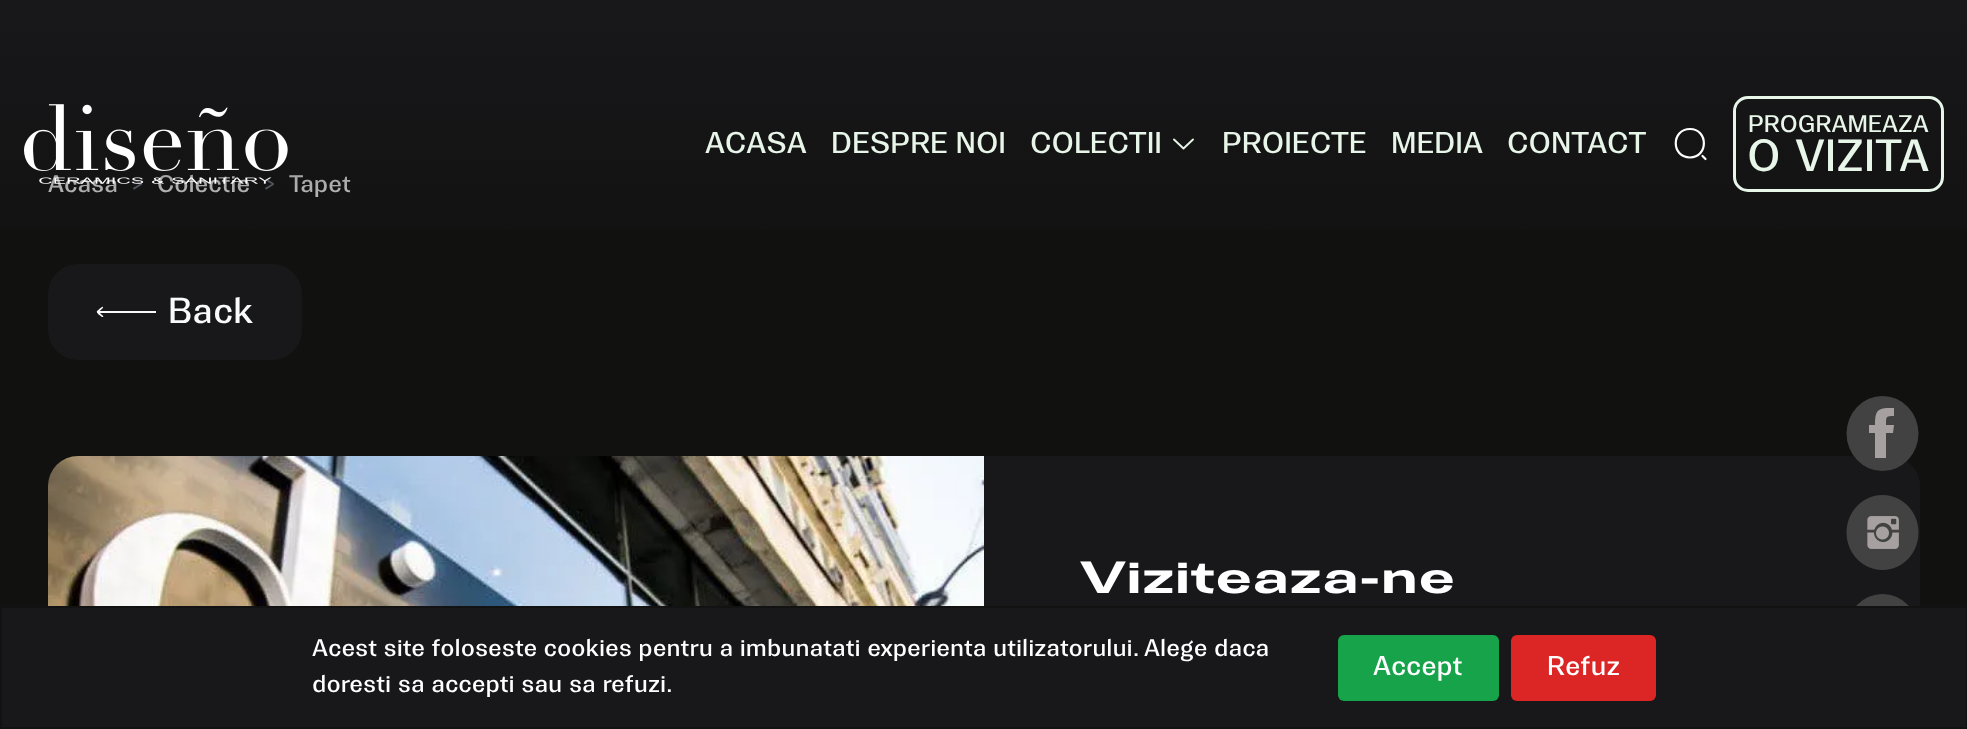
<svg xmlns="http://www.w3.org/2000/svg" width="1967" height="729" viewBox="0 0 1967 729">
  <defs>
    <linearGradient id="g1" gradientUnits="userSpaceOnUse" x1="984" y1="0" x2="984" y2="288"><stop offset="0" stop-color="#18181b"/><stop offset="1" stop-color="#18181b" stop-opacity="0"/></linearGradient>
  </defs>
  <rect width="100%" height="100%" fill="#111110"/>
  <text x="48" y="192" font-family="'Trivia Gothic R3'" font-size="24" fill="#ffffff">Acasa</text>
  <text x="130" y="192" font-family="'Trivia Gothic R3'" font-size="24" fill="#6b7280">&gt;</text>
  <text x="157" y="192" font-family="'Trivia Gothic R3'" font-size="24" fill="#ffffff">Colectie</text>
  <text x="262" y="192" font-family="'Trivia Gothic R3'" font-size="24" fill="#6b7280">&gt;</text>
  <text x="289" y="192" font-family="'Trivia Gothic R3'" font-size="24" fill="#ffffff">Tapet</text>
  <rect x="0" y="0" width="1967" height="229" fill="url(#g1)"/>
  <image x="24" y="104" width="264" height="80" href="img1.png"/>
  <text x="705" y="153" font-family="'Trivia Gothic R3'" font-size="30" fill="#e8f5e9">ACASA</text>
  <text x="831" y="153" font-family="'Trivia Gothic R3'" font-size="30" fill="#e8f5e9">DESPRE NOI</text>
  <text x="1030" y="153" font-family="'Trivia Gothic R3'" font-size="30" fill="#e8f5e9">COLECTII</text>
  <path d="M1193 139.5L1183.5 148.5L1174 139.5" fill="none" stroke="#e8f5e9" stroke-width="1.9" stroke-linecap="round" stroke-linejoin="round"/>
  <text x="1222" y="153" font-family="'Trivia Gothic R3'" font-size="30" fill="#e8f5e9">PROIECTE</text>
  <text x="1391" y="153" font-family="'Trivia Gothic R3'" font-size="30" fill="#e8f5e9">MEDIA</text>
  <text x="1507" y="153" font-family="'Trivia Gothic R3'" font-size="30" fill="#e8f5e9">CONTACT</text>
  <path d="M1690 157.5C1708.5 157.5 1708.5 129 1690 129C1671 129 1671 157.5 1690 157.5ZM1705.5 159L1702.5 156" fill="none" stroke="#ffffff" stroke-width="2.2" stroke-linecap="round" stroke-linejoin="round"/>
  <rect x="1734.5" y="97.5" width="208" height="93" rx="13.5" fill="none" stroke="#e8f5e9" stroke-width="3"/>
  <text x="1748" y="132" font-family="'Trivia Gothic R3'" font-size="24" fill="#e8f5e9">PROGRAMEAZA</text>
  <text x="1747" y="171" word-spacing="3" font-family="'Trivia Gothic R3'" font-size="45" fill="#e8f5e9">O VIZITA</text>
  <rect x="48" y="264" width="254" height="96" rx="30" fill="#18181b"/>
  <path d="M97 311C96 312 98 313 98 314L102 317H103C104 316 102 315 102 315L99 312C99 311 104 308 103 307C102 306 98 311 97 311ZM156 311H97V313H156Z" fill="#f9f9f9"/>
  <text x="168" y="323" font-family="'Trivia Gothic R3'" font-size="36" fill="#f9fafb">Back</text>
  <image x="48" y="456" width="936" height="150" href="img2.png"/>
  <path d="M984 456H1890C1906.5 456 1920 469.5 1920 486V729C1920 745.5 1906.5 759 1890 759H984Z" fill="#18181b"/>
  <text x="1080" y="593" font-family="'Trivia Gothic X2'" font-size="45" font-weight="bold" fill="#ffffff">Viziteaza-ne</text>
  <ellipse cx="1882.5" cy="433.5" rx="36" ry="37.5" fill="#424242"/>
  <path d="M1886 425C1886 416 1886 416 1894 416V408C1879 408 1875 408 1875 425H1869V433H1875V458H1886V433H1893L1894 425Z" fill="#a6a0a0" fill-rule="evenodd"/>
  <image x="1846" y="495" width="73" height="75" href="img3.png"/>
  <ellipse cx="1882.5" cy="631.5" rx="36" ry="37.5" fill="#424242"/>
  <rect x="1" y="607" width="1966" height="121" fill="#18181b" stroke="#121212" stroke-width="2"/>
  <text x="312" y="656" word-spacing="0.4" font-family="'Trivia Gothic R3'" font-size="24" fill="#ffffff">Acest site foloseste cookies pentru a imbunatati experienta utilizatorului. Alege daca</text>
  <text x="312" y="692" word-spacing="0.5" font-family="'Trivia Gothic R3'" font-size="24" fill="#ffffff">doresti sa accepti sau sa refuzi.</text>
  <rect x="1338" y="635" width="161" height="66" rx="6" fill="#16a34a"/>
  <text x="1373" y="675" font-family="'Trivia Gothic R3'" font-size="27" fill="#ffffff">Accept</text>
  <rect x="1511" y="635" width="145" height="66" rx="6" fill="#dc2626"/>
  <text x="1547" y="675" font-family="'Trivia Gothic R3'" font-size="27" fill="#ffffff">Refuz</text>
</svg>
